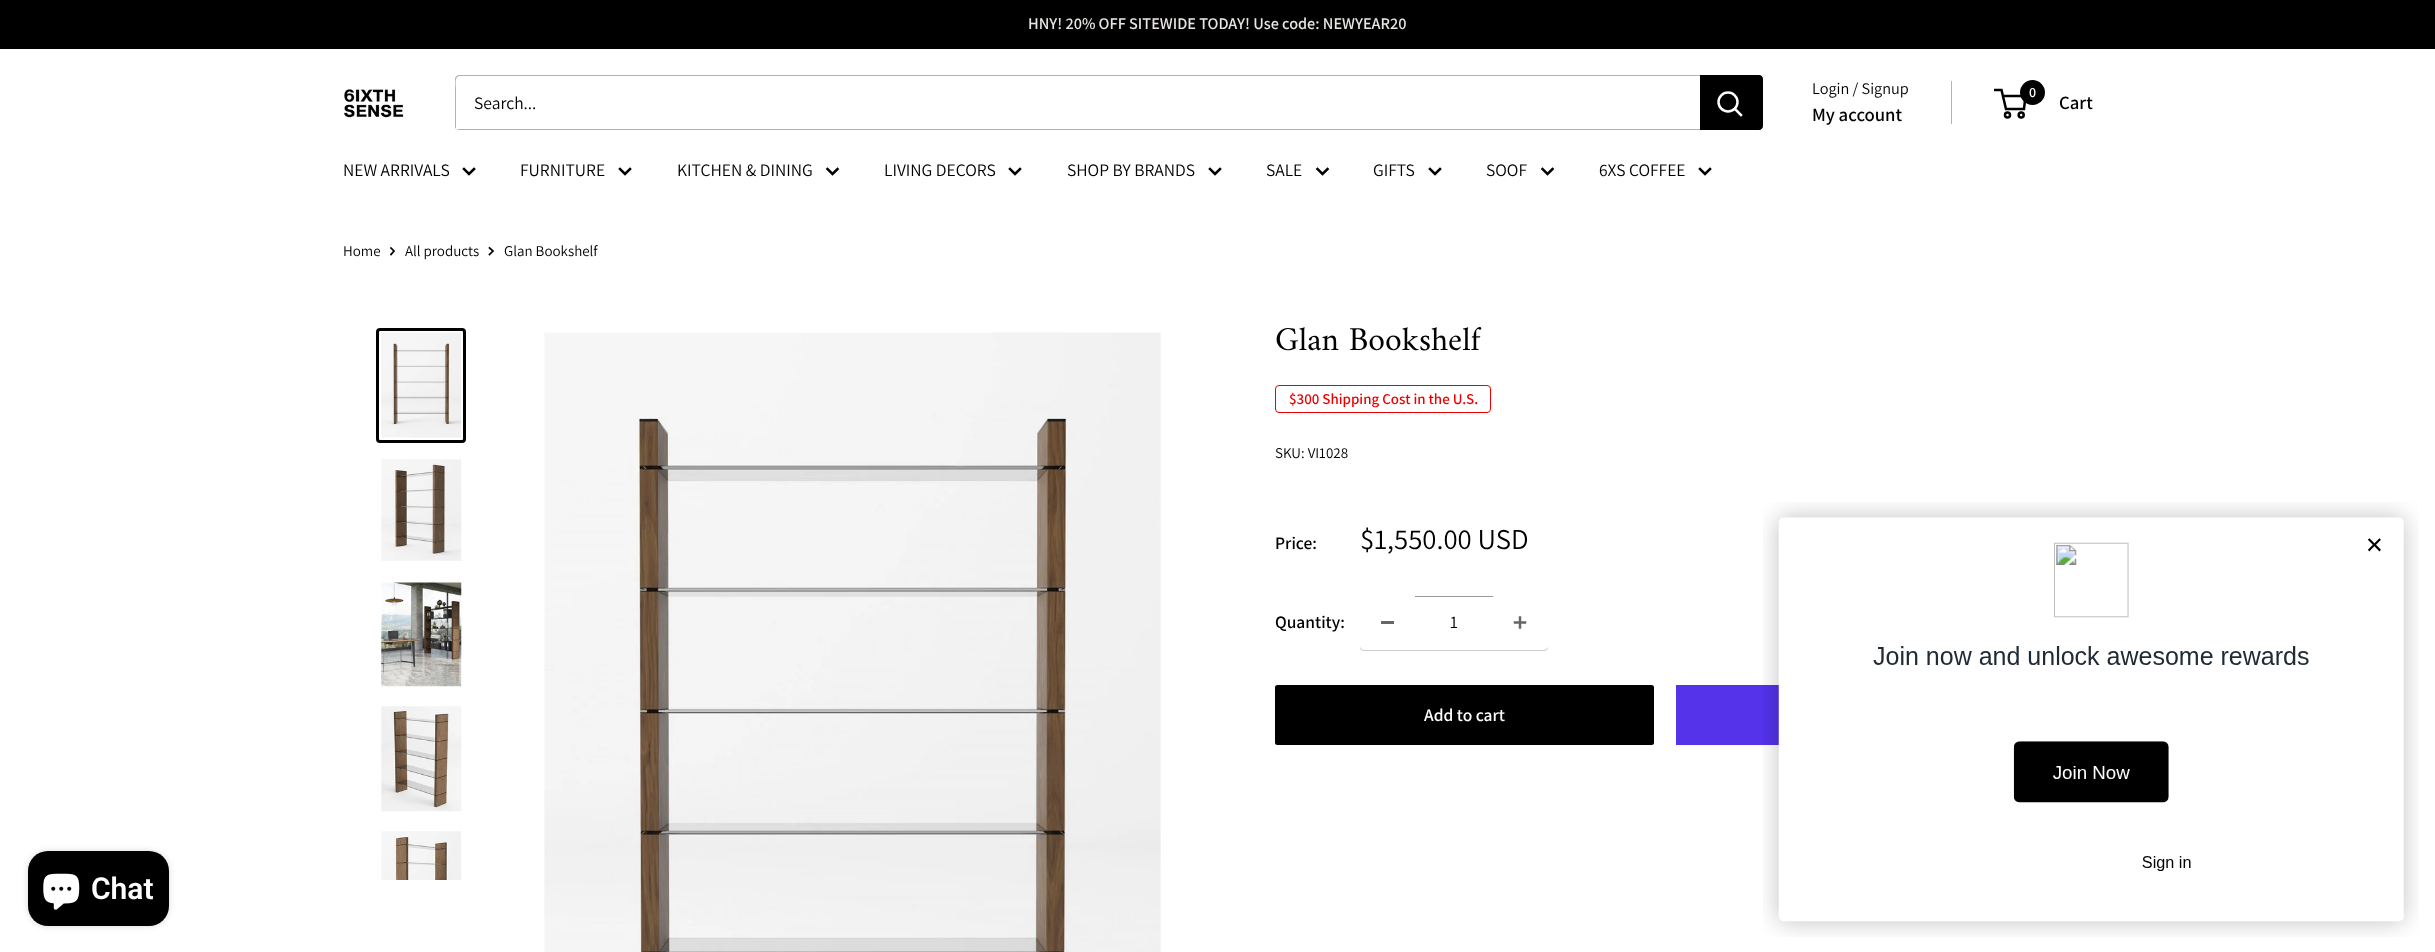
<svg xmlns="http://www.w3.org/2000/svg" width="2435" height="952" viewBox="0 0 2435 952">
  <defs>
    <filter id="blur1" x="-50%" y="-200%" width="200%" height="500%"><feGaussianBlur stdDeviation="3"/></filter>
    <clipPath id="clip1"><path d="M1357 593H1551V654H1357ZM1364 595H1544C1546 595 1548 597 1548 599V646C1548 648 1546 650 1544 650H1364C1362 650 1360 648 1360 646V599C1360 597 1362 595 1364 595Z" clip-rule="evenodd"/></clipPath>
    <filter id="blur2" x="-50%" y="-200%" width="200%" height="500%"><feGaussianBlur stdDeviation="0.5"/></filter>
  </defs>
  <rect width="100%" height="100%" fill="#ffffff"/>
  <rect x="0" y="0" width="2435" height="49" fill="#000000"/>
  <text x="1028" y="29" font-family="Assistant" font-size="16.25" font-weight="600" fill="#e8e6e0">HNY! 20% OFF SITEWIDE TODAY! Use code: NEWYEAR20</text>
  <image x="344" y="89" width="60" height="29" href="img1.png"/>
  <path d="M456 129C457 129 458 130 459 130H1759C1761 130 1763 128 1763 126V79C1763 77 1762 76 1761 75V78V125C1761 127 1760 129 1758 129H458Z" fill="#b3b3b3"/>
  <path d="M460 76H1760L1762 77C1762 76 1760 75 1759 75H459C457 75 455 77 455 79V126C455 127 455 128 456 129V88C456 86 454 76 460 76Z" fill="#000000" fill-opacity="0.3"/>
  <text x="474" y="109" font-family="Assistant" font-size="17.5" fill="#000000">Search...</text>
  <path d="M1700 75H1759C1761 75 1763 77 1763 79V126C1763 128 1761 130 1759 130H1700Z" fill="#000000"/>
  <path d="M1741 115L1735 109" fill="none" stroke="#ffffff" stroke-width="2.5" stroke-linecap="square"/>
  <circle cx="1728" cy="102" r="9.5" fill="none" stroke="#ffffff" stroke-width="2.5"/>
  <text x="1812" y="94" font-family="Assistant" font-size="16.25" fill="#000000">Login / Signup</text>
  <rect x="1951" y="81" width="1" height="43" fill="#b3b3b3"/>
  <text x="1812" y="121" font-family="Assistant" font-size="18.75" font-weight="600" fill="#000000">My account</text>
  <circle cx="2007.5" cy="115" r="2.5" fill="none" stroke="#000000" stroke-width="2.5"/>
  <circle cx="2021.2" cy="115" r="2.5" fill="none" stroke="#000000" stroke-width="2.5"/>
  <path d="M2003 96H2025.5L2024 109H2006L2001.5 90H1994" fill="none" stroke="#000000" stroke-width="2.5"/>
  <circle cx="2032.5" cy="92.5" r="12.5" fill="#000000"/>
  <text x="2029" y="97" font-family="Assistant" font-size="14" font-weight="600" fill="#ffffff">0</text>
  <text x="2059" y="109" font-family="Assistant" font-size="18.75" font-weight="600" fill="#000000">Cart</text>
  <text x="343" y="176" font-family="Assistant" font-size="17.5" fill="#000000">NEW ARRIVALS</text>
  <path d="M474 169L469 174L464 169" fill="none" stroke="#000000" stroke-width="2.5" stroke-linecap="square"/>
  <text x="520" y="176" font-family="Assistant" font-size="17.5" fill="#000000">FURNITURE</text>
  <path d="M630 169L625 174L620 169" fill="none" stroke="#000000" stroke-width="2.5" stroke-linecap="square"/>
  <text x="677" y="176" font-family="Assistant" font-size="17.5" fill="#000000">KITCHEN &amp; DINING</text>
  <path d="M837.5 169L832.5 174L827.5 169" fill="none" stroke="#000000" stroke-width="2.5" stroke-linecap="square"/>
  <text x="884" y="176" font-family="Assistant" font-size="17.5" fill="#000000">LIVING DECORS</text>
  <path d="M1020 169L1015 174L1010 169" fill="none" stroke="#000000" stroke-width="2.5" stroke-linecap="square"/>
  <text x="1067" y="176" font-family="Assistant" font-size="17.5" fill="#000000">SHOP BY BRANDS</text>
  <path d="M1220 169L1215 174L1210 169" fill="none" stroke="#000000" stroke-width="2.5" stroke-linecap="square"/>
  <text x="1266" y="176" font-family="Assistant" font-size="17.5" fill="#000000">SALE</text>
  <path d="M1327.5 169L1322.5 174L1317.5 169" fill="none" stroke="#000000" stroke-width="2.5" stroke-linecap="square"/>
  <text x="1373" y="176" font-family="Assistant" font-size="17.5" fill="#000000">GIFTS</text>
  <path d="M1440 169L1435 174L1430 169" fill="none" stroke="#000000" stroke-width="2.5" stroke-linecap="square"/>
  <text x="1486" y="176" font-family="Assistant" font-size="17.5" fill="#000000">SOOF</text>
  <path d="M1552.5 169L1547.5 174L1542.5 169" fill="none" stroke="#000000" stroke-width="2.5" stroke-linecap="square"/>
  <text x="1599" y="176" font-family="Assistant" font-size="17.5" fill="#000000">6XS COFFEE</text>
  <path d="M1710 169L1705 174L1700 169" fill="none" stroke="#000000" stroke-width="2.5" stroke-linecap="square"/>
  <rect x="28" y="851" width="141" height="75" rx="20" fill="#000000" fill-opacity="0.15" filter="url(#blur1)"/>
  <rect x="28" y="851" width="141" height="75" rx="20" fill="#000000"/>
  <image x="43" y="873" width="37" height="37" href="img2.png"/>
  <text x="91" y="899" font-family="Roboto" font-size="30" font-weight="600" fill="#ffffff">Chat</text>
  <text x="343" y="256" font-family="Assistant" font-size="15" fill="#000000">Home</text>
  <path d="M391 248L394 251L391 254.5" fill="none" stroke="#000000" stroke-width="1.7" stroke-linecap="square"/>
  <text x="405" y="256" font-family="Assistant" font-size="15" fill="#000000">All products</text>
  <path d="M489.5 248L493 251L489.5 254.5" fill="none" stroke="#000000" stroke-width="1.7" stroke-linecap="square"/>
  <text x="504" y="256" font-family="Assistant" font-size="15" fill="#000000">Glan Bookshelf</text>
  <rect x="377.5" y="329.5" width="87" height="112" rx="2.5" fill="none" stroke="#000000" stroke-width="3"/>
  <image x="381" y="332" width="81" height="106" href="img3.png"/>
  <image x="381" y="459" width="81" height="102" href="img4.png"/>
  <image x="381" y="582" width="81" height="105" href="img5.png"/>
  <image x="381" y="706" width="81" height="106" href="img6.png"/>
  <image x="381" y="831" width="81" height="49" href="img7.png"/>
  <image x="544" y="332" width="617" height="620" href="img8.png"/>
  <text x="1275" y="350" font-family="Amiri" font-size="33.75" fill="#000000">Glan Bookshelf</text>
  <rect x="1275.5" y="385.5" width="215" height="27" rx="3.5" fill="none" stroke="#ee0000"/>
  <text x="1289" y="404" font-family="Assistant" font-size="15" font-weight="600" fill="#ee0000">$300 Shipping Cost in the U.S.</text>
  <text x="1275" y="458" font-family="Assistant" font-size="15" fill="#000000">SKU: VI1028</text>
  <text x="1275" y="549" font-family="Assistant" font-size="17.5" font-weight="600" fill="#000000">Price:</text>
  <text x="1360" y="549" font-family="Assistant" font-size="28.75" fill="#000000">$1,550.00 USD</text>
  <text x="1275" y="628" font-family="Assistant" font-size="17.5" font-weight="600" fill="#000000">Quantity:</text>
  <g clip-path="url(#clip1)">
    <rect x="1360" y="596" width="188" height="55" rx="4" fill="#000000" fill-opacity="0.2" filter="url(#blur2)"/>
  </g>
  <rect x="1381" y="621" width="13" height="3" fill="#666666"/>
  <rect x="1415" y="596" width="78" height="1" fill="#999999"/>
  <text x="1450" y="628" font-family="Assistant" font-size="17.5" fill="#000000">1</text>
  <image x="1513" y="616" width="14" height="13" href="img9.png"/>
  <rect x="1275" y="685" width="379" height="60" rx="2.5" fill="#000000"/>
  <text x="1424" y="721" font-family="Assistant" font-size="17.5" font-weight="600" fill="#ffffff">Add to cart</text>
  <rect x="1676" y="685" width="103" height="60" fill="#5433eb"/>
  <image x="1763" y="502" width="656" height="435" href="img10.png"/>
</svg>
